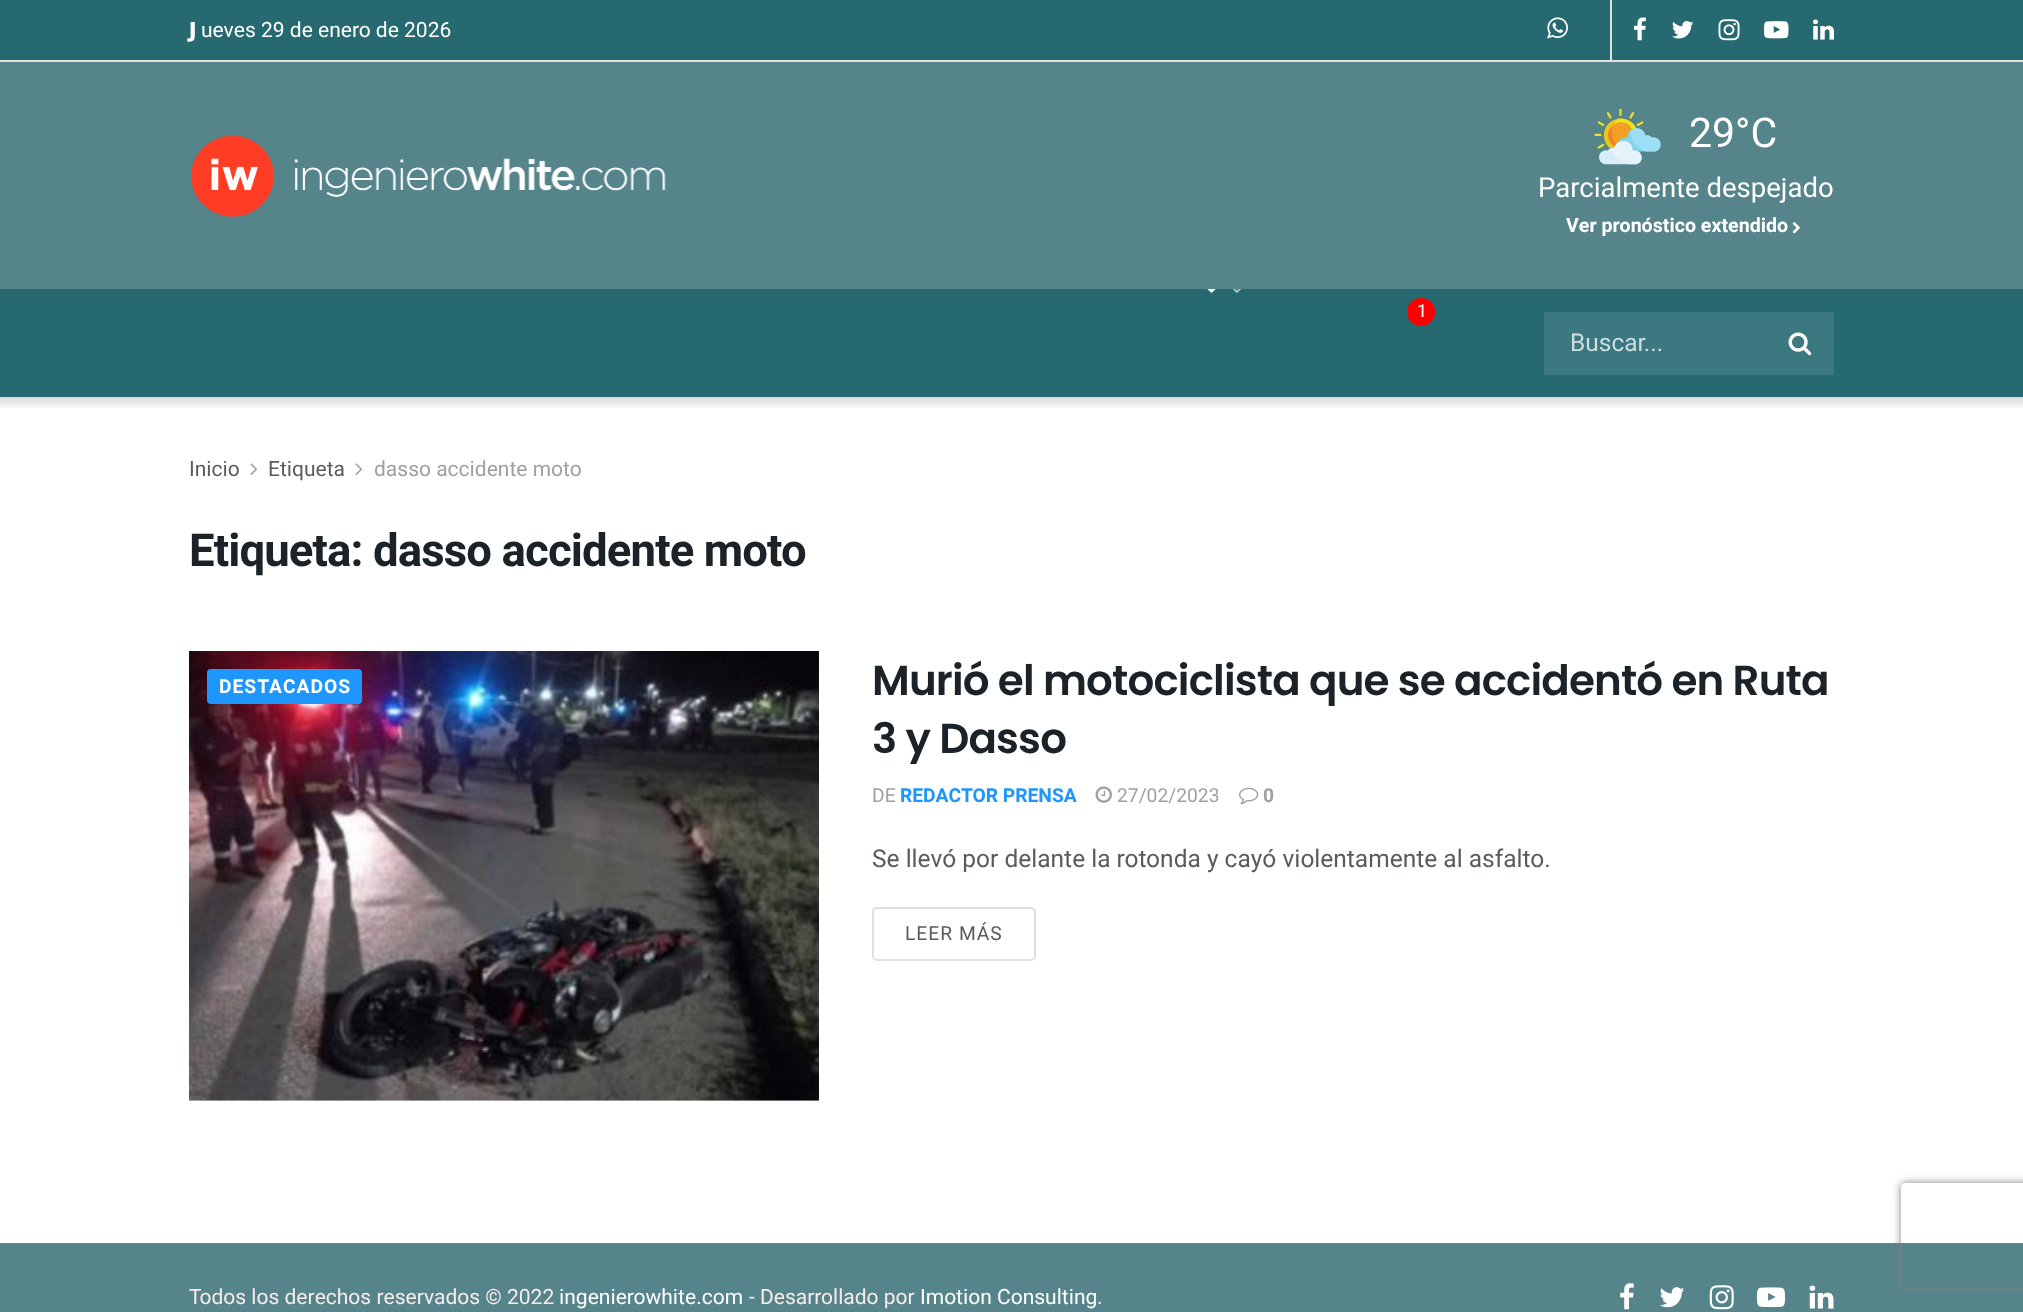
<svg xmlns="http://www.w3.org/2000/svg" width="2023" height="1312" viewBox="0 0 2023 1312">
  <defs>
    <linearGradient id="g1" gradientUnits="userSpaceOnUse" x1="1012" y1="397" x2="1012" y2="410"><stop offset="0" stop-color="#000000" stop-opacity="0.15"/><stop offset="1" stop-color="#000000" stop-opacity="0"/></linearGradient>
    <clipPath id="clip1"><path d="M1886 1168H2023V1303H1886ZM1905 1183H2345C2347 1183 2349 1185 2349 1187V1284C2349 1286 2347 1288 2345 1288H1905C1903 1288 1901 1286 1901 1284V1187C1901 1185 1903 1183 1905 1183Z" clip-rule="evenodd"/></clipPath>
    <filter id="blur1" x="-50%" y="-200%" width="200%" height="500%"><feGaussianBlur stdDeviation="4.5"/></filter>
  </defs>
  <rect width="100%" height="100%" fill="#ffffff"/>
  <rect x="0" y="0" width="2023" height="60" fill="#266971"/>
  <rect x="0" y="60" width="2023" height="2" fill="#e0e0e0"/>
  <text x="189" y="37" font-family="Noto Sans" font-size="21" font-weight="900" fill="#ffffff">J</text>
  <text x="201" y="37" font-family="Heebo" font-size="21" fill="#ffffff">ueves 29 de enero de 2026</text>
  <rect x="1610" y="0" width="2" height="60" fill="#e0e0e0"/>
  <image x="1547" y="17" width="21" height="22" href="img1.png"/>
  <image x="1634" y="17" width="12" height="24" href="img2.png"/>
  <image x="1672" y="21" width="22" height="18" href="img3.png"/>
  <image x="1718" y="19" width="22" height="22" href="img4.png"/>
  <image x="1764" y="21" width="25" height="18" href="img5.png"/>
  <image x="1813" y="19" width="21" height="21" href="img6.png"/>
  <rect x="0" y="62" width="2023" height="227" fill="#55848a"/>
  <image x="191" y="135" width="475" height="82" href="img7.png"/>
  <image x="1594" y="108" width="67" height="57" href="img8.png"/>
  <text x="1689" y="147" font-family="Heebo" font-size="41" fill="#ffffff">29°C</text>
  <text x="1538" y="197" font-family="Heebo" font-size="27.5" fill="#ffffff">Parcialmente despejado</text>
  <text x="1566" y="232" font-family="Heebo" font-size="19.6" font-weight="bold" fill="#ffffff">Ver pronóstico extendido</text>
  <image x="1792" y="222" width="8" height="12" href="img9.png"/>
  <rect x="0" y="289" width="2023" height="108" fill="#266971"/>
  <image x="1207" y="289" width="9" height="4" href="img10.png"/>
  <image x="1232" y="289" width="9" height="4" href="img11.png"/>
  <circle cx="1421" cy="312" r="14" fill="#ff0000"/>
  <text x="1417" y="317" font-family="Heebo" font-size="18" fill="#ffffff">1</text>
  <rect x="1544" y="312" width="290" height="63" fill="#3c787f"/>
  <text x="1570" y="351" font-family="Heebo" font-size="24.5" fill="#cedddf">Buscar...</text>
  <image x="1788" y="332" width="24" height="24" href="img12.png"/>
  <rect x="0" y="397" width="2023" height="11" fill="url(#g1)"/>
  <text x="189" y="476" font-family="Heebo" font-size="21" fill="#595c5f">Inicio</text>
  <image x="250" y="463" width="8" height="12" href="img13.png"/>
  <text x="268" y="476" font-family="Heebo" font-size="21" fill="#595c5f">Etiqueta</text>
  <image x="355" y="463" width="8" height="12" href="img13.png"/>
  <text x="374" y="476" font-family="Heebo" font-size="21" fill="#a0a0a0">dasso accidente moto</text>
  <text x="189" y="566" font-family="Heebo" font-size="45.5" font-weight="bold" letter-spacing="-0.9" fill="#1b2228">Etiqueta: dasso accidente moto</text>
  <rect x="189" y="1100" width="630" height="1" fill="#f7f7f7"/>
  <image x="189" y="651" width="630" height="450" href="img14.png"/>
  <rect x="207" y="669" width="155" height="35" rx="4" fill="#1e96fc"/>
  <text x="219" y="693" font-family="Heebo" font-size="19.25" font-weight="bold" letter-spacing="1" fill="#ffffff">DESTACADOS</text>
  <text x="872" y="695" font-family="Poppins" font-size="42" font-weight="600" letter-spacing="-0.85" fill="#1b2228">Murió el motociclista que se accidentó en Ruta</text>
  <text x="872" y="753" font-family="Poppins" font-size="42" font-weight="600" letter-spacing="-0.85" fill="#1b2228">3 y Dasso</text>
  <text x="872" y="802" font-family="Heebo" font-size="19.25" fill="#a0a0a0">DE</text>
  <text x="900" y="802" font-family="Heebo" font-size="19.25" font-weight="bold" fill="#1e96fc">REDACTOR PRENSA</text>
  <image x="1095" y="786" width="17" height="17" href="img15.png"/>
  <text x="1117" y="802" font-family="Heebo" font-size="19.25" fill="#a0a0a0">27/02/2023</text>
  <image x="1239" y="787" width="20" height="18" href="img16.png"/>
  <text x="1263" y="802" font-family="Heebo" font-size="19.25" font-weight="bold" fill="#a0a0a0">0</text>
  <text x="872" y="867" font-family="Heebo" font-size="24.5" fill="#595c5f">Se llevó por delante la rotonda y cayó violentamente al asfalto.</text>
  <rect x="873" y="908" width="162" height="52" rx="4" fill="none" stroke="#e0e0e0" stroke-width="2"/>
  <text x="905" y="940" font-family="Heebo" font-size="19.25" letter-spacing="1" fill="#595c5f">LEER MÁS</text>
  <rect x="0" y="1243" width="2023" height="69" fill="#55848a"/>
  <text x="189" y="1304" font-family="Heebo" font-size="21" fill="#f9ebea">Todos los derechos reservados © 2022</text>
  <text x="559" y="1304" font-family="Heebo" font-size="21" fill="#ffffff">ingenierowhite.com</text>
  <text x="749" y="1304" font-family="Heebo" font-size="21" fill="#f9ebea">- Desarrollado por</text>
  <text x="920" y="1304" font-family="Heebo" font-size="21" fill="#ffffff">Imotion Consulting</text>
  <text x="1097" y="1304" font-family="Heebo" font-size="21" fill="#f9ebea">.</text>
  <image x="1620" y="1283" width="14" height="27" href="img17.png"/>
  <image x="1660" y="1287" width="25" height="21" href="img18.png"/>
  <image x="1709" y="1285" width="25" height="25" href="img19.png"/>
  <image x="1757" y="1287" width="28" height="21" href="img20.png"/>
  <image x="1809" y="1285" width="25" height="24" href="img21.png"/>
  <g clip-path="url(#clip1)">
    <rect x="1901" y="1183" width="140" height="105" rx="4" fill="#808080" filter="url(#blur1)"/>
  </g>
</svg>
